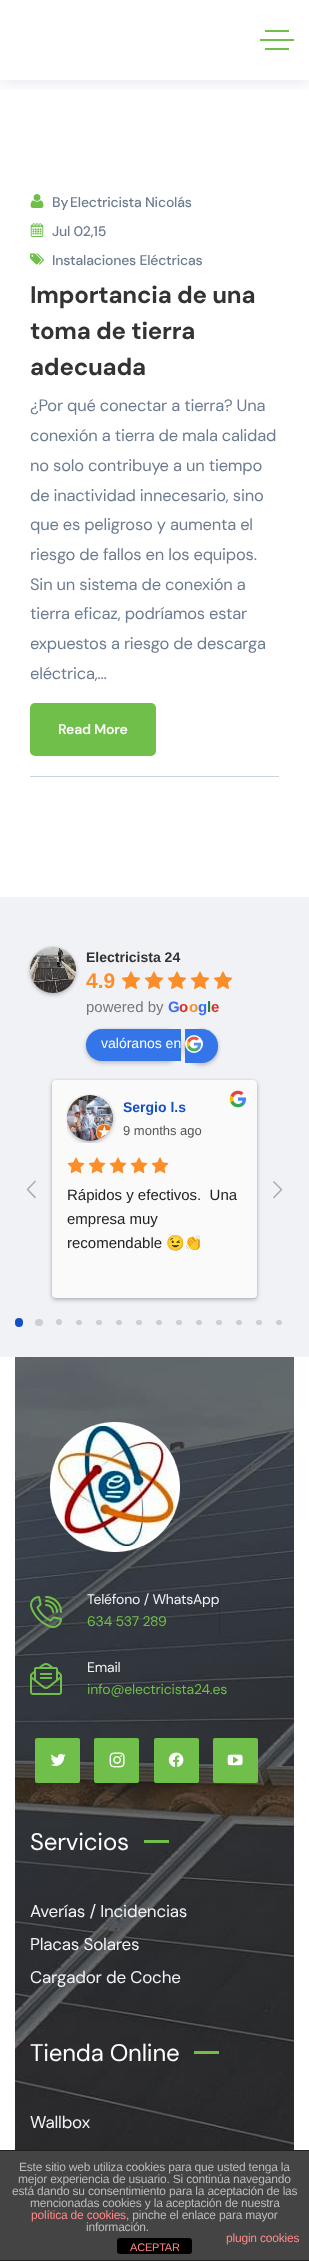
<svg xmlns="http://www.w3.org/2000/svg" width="309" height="2261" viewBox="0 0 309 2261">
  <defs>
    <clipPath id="clip1"><rect x="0" y="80" width="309" height="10"/></clipPath>
    <filter id="blur1" x="-50%" y="-200%" width="200%" height="500%"><feGaussianBlur stdDeviation="9"/></filter>
    <filter id="blur2" x="-50%" y="-200%" width="200%" height="500%"><feGaussianBlur stdDeviation="2"/></filter>
    <filter id="blur3" x="-50%" y="-200%" width="200%" height="500%"><feGaussianBlur stdDeviation="1"/></filter>
    <clipPath id="clip2"><rect x="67" y="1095" width="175" height="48"/></clipPath>
  </defs>
  <rect width="100%" height="100%" fill="#ffffff"/>
  <g clip-path="url(#clip1)">
    <rect x="0" y="3" width="309" height="80" fill="#02154e" fill-opacity="0.09" filter="url(#blur1)"/>
  </g>
  <rect x="265" y="30" width="24" height="2" fill="#70bf4a"/>
  <rect x="260" y="39" width="34" height="2" fill="#70bf4a"/>
  <rect x="265" y="48" width="24" height="2" fill="#70bf4a"/>
  <rect x="30" y="776" width="249" height="1" fill="#c9d5db"/>
  <image x="30" y="194" width="14" height="14" href="img1.png"/>
  <text x="52" y="207" font-family="DM Sans" font-size="14" font-weight="500" letter-spacing="-0.2" fill="#6d7c90">By</text>
  <text x="70" y="207" font-family="DM Sans" font-size="14" font-weight="500" letter-spacing="-0.2" fill="#6d7c90">Electricista Nicolás</text>
  <image x="30" y="223" width="14" height="14" href="img2.png"/>
  <text x="52" y="236" font-family="DM Sans" font-size="14" font-weight="500" letter-spacing="-0.2" fill="#6d7c90">Jul 02,15</text>
  <image x="30" y="253" width="14" height="12" href="img3.png"/>
  <text x="52" y="265" font-family="DM Sans" font-size="14" font-weight="500" letter-spacing="-0.2" fill="#6d7c90">Instalaciones Eléctricas</text>
  <text x="30" y="303" font-family="DM Sans" font-size="24" font-weight="bold" letter-spacing="-0.2" fill="#333333">Importancia de una</text>
  <text x="30" y="339" font-family="DM Sans" font-size="24" font-weight="bold" letter-spacing="-0.2" fill="#333333">toma de tierra</text>
  <text x="30" y="375" font-family="DM Sans" font-size="24" font-weight="bold" letter-spacing="-0.2" fill="#333333">adecuada</text>
  <text x="30" y="411" font-family="DM Sans" font-size="16.5" letter-spacing="-0.2" fill="#6d7c90">¿Por qué conectar a tierra? Una</text>
  <text x="30" y="441" font-family="DM Sans" font-size="16.5" letter-spacing="-0.2" fill="#6d7c90">conexión a tierra de mala calidad</text>
  <text x="30" y="471" font-family="DM Sans" font-size="16.5" letter-spacing="-0.2" fill="#6d7c90">no solo contribuye a un tiempo</text>
  <text x="30" y="501" font-family="DM Sans" font-size="16.5" letter-spacing="-0.2" fill="#6d7c90">de inactividad innecesario, sino</text>
  <text x="30" y="530" font-family="DM Sans" font-size="16.5" letter-spacing="-0.2" fill="#6d7c90">que es peligroso y aumenta el</text>
  <text x="30" y="560" font-family="DM Sans" font-size="16.5" letter-spacing="-0.2" fill="#6d7c90">riesgo de fallos en los equipos.</text>
  <text x="30" y="590" font-family="DM Sans" font-size="16.5" letter-spacing="-0.2" fill="#6d7c90">Sin un sistema de conexión a</text>
  <text x="30" y="619" font-family="DM Sans" font-size="16.5" letter-spacing="-0.2" fill="#6d7c90">tierra eficaz, podríamos estar</text>
  <text x="30" y="649" font-family="DM Sans" font-size="16.5" letter-spacing="-0.2" fill="#6d7c90">expuestos a riesgo de descarga</text>
  <text x="30" y="679" font-family="DM Sans" font-size="16.5" letter-spacing="-0.2" fill="#6d7c90">eléctrica,…</text>
  <rect x="30" y="703" width="126" height="53" rx="5" fill="#70bf4a"/>
  <text x="58" y="734" font-family="DM Sans" font-size="14" font-weight="600" letter-spacing="-0.2" fill="#fefefe">Read More</text>
  <rect x="0" y="897" width="309" height="460" fill="#f1f2f6"/>
  <rect x="30" y="949" width="46" height="46" rx="23" fill="#000000" fill-opacity="0.24" filter="url(#blur2)"/>
  <rect x="30" y="947" width="46" height="46" rx="23" fill="#000000" fill-opacity="0.12" filter="url(#blur3)"/>
  <image x="30" y="947" width="46" height="46" href="img4.png"/>
  <text x="86" y="962" font-family="Liberation Sans" font-size="14" font-weight="bold" fill="#333333">Electricista 24</text>
  <text x="86" y="988" font-family="Liberation Sans" font-size="21" font-weight="bold" fill="#fb8e28">4.9</text>
  <image x="121" y="971" width="20" height="18" href="img5.png"/>
  <image x="144" y="971" width="20" height="18" href="img5.png"/>
  <image x="167" y="971" width="20" height="18" href="img5.png"/>
  <image x="190" y="971" width="20" height="18" href="img5.png"/>
  <image x="213" y="971" width="20" height="18" href="img5.png"/>
  <text x="86" y="1012" font-family="Liberation Sans" font-size="15" fill="#777777">powered by</text>
  <text x="168" y="1012" font-family="Liberation Sans" font-size="15" font-weight="bold" fill="#3c6df0">G</text>
  <text x="179" y="1012" font-family="Liberation Sans" font-size="15" font-weight="bold" fill="#d93025">o</text>
  <text x="189" y="1012" font-family="Liberation Sans" font-size="15" font-weight="bold" fill="#fb8e28">o</text>
  <text x="198" y="1012" font-family="Liberation Sans" font-size="15" font-weight="bold" fill="#3c6df0">g</text>
  <text x="207" y="1012" font-family="Liberation Sans" font-size="15" font-weight="bold" fill="#188038">l</text>
  <text x="211" y="1012" font-family="Liberation Sans" font-size="15" font-weight="bold" fill="#d93025">e</text>
  <rect x="86" y="1031" width="95" height="32" rx="16" fill="#181819" fill-opacity="0.24" filter="url(#blur2)"/>
  <rect x="86" y="1029" width="95" height="32" rx="16" fill="#181819" fill-opacity="0.12" filter="url(#blur3)"/>
  <path d="M102 1029H181V1061H102C93 1061 86 1054 86 1045C86 1036 93 1029 102 1029Z" fill="#3475e9"/>
  <rect x="185" y="1031" width="33" height="34" rx="16.5" fill="#181819" fill-opacity="0.24" filter="url(#blur2)"/>
  <rect x="185" y="1029" width="33" height="34" rx="16.5" fill="#181819" fill-opacity="0.12" filter="url(#blur3)"/>
  <path d="M185 1029H201.5C210.5 1029 218 1036.5 218 1045.5V1046.5C218 1055.5 210.5 1063 201.5 1063H185Z" fill="#3475e9"/>
  <text x="101" y="1048" font-family="Liberation Sans" font-size="14" fill="#fefefe">valóranos en</text>
  <circle cx="194" cy="1044" r="9" fill="#fefefe"/>
  <image x="186" y="1036" width="16" height="16" href="img6.png"/>
  <path d="M35 1198.5L26.5 1189.5L35 1180.5L36 1181.5L28.5 1189.5L36 1197Z" fill="#aaaaaa"/>
  <rect x="52" y="1082" width="205" height="218" rx="4" fill="#000000" fill-opacity="0.24" filter="url(#blur2)"/>
  <rect x="52" y="1080" width="205" height="218" rx="4" fill="#000000" fill-opacity="0.12" filter="url(#blur3)"/>
  <rect x="52" y="1080" width="205" height="218" rx="4" fill="#fafafa"/>
  <image x="229" y="1090" width="17" height="18" href="img7.png"/>
  <g clip-path="url(#clip2)">
    <rect x="67" y="1097" width="46" height="46" rx="23" fill="#000000" fill-opacity="0.24" filter="url(#blur2)"/>
  </g>
  <rect x="67" y="1095" width="46" height="46" rx="23" fill="#000000" fill-opacity="0.12" filter="url(#blur3)"/>
  <image x="67" y="1095" width="46" height="46" href="img8.png"/>
  <text x="123" y="1112" font-family="Liberation Sans" font-size="14" font-weight="bold" fill="#154fc1">Sergio l.s</text>
  <text x="123" y="1135" font-family="Liberation Sans" font-size="13" fill="#555555">9 months ago</text>
  <image x="67" y="1157" width="18" height="17" href="img9.png"/>
  <image x="88" y="1157" width="18" height="17" href="img9.png"/>
  <image x="109" y="1157" width="18" height="17" href="img9.png"/>
  <image x="130" y="1157" width="18" height="17" href="img9.png"/>
  <image x="151" y="1157" width="18" height="17" href="img9.png"/>
  <text x="67" y="1200" font-family="Liberation Sans" font-size="15" fill="#222222" xml:space="preserve">Rápidos y efectivos.  Una</text>
  <text x="67" y="1224" font-family="Liberation Sans" font-size="15" fill="#222222">empresa muy</text>
  <text x="67" y="1248" font-family="Liberation Sans" font-size="15" fill="#222222">recomendable</text>
  <text x="166" y="1248" font-family="Noto Color Emoji" font-size="15" fill="#222222">😉👏</text>
  <path d="M274 1198.5L273 1197.5L280.5 1189.5L273 1182L274 1181L282.5 1189.5Z" fill="#aaaaaa"/>
  <rect x="15" y="1318" width="8" height="9" rx="4" fill="#154fc1"/>
  <rect x="35" y="1319" width="8" height="7" rx="3.5" fill="#ceced1"/>
  <circle cx="59" cy="1322" r="3" fill="#ceced1"/>
  <rect x="76" y="1320" width="6" height="5" rx="2.5" fill="#ceced1"/>
  <rect x="96" y="1320" width="6" height="5" rx="2.5" fill="#ceced1"/>
  <rect x="116" y="1320" width="6" height="5" rx="2.5" fill="#ceced1"/>
  <rect x="136" y="1320" width="6" height="5" rx="2.5" fill="#ceced1"/>
  <rect x="156" y="1320" width="6" height="5" rx="2.5" fill="#ceced1"/>
  <rect x="176" y="1320" width="6" height="5" rx="2.5" fill="#ceced1"/>
  <rect x="196" y="1320" width="6" height="5" rx="2.5" fill="#ceced1"/>
  <rect x="216" y="1320" width="6" height="5" rx="2.5" fill="#ceced1"/>
  <rect x="236" y="1320" width="6" height="5" rx="2.5" fill="#ceced1"/>
  <rect x="256" y="1320" width="6" height="5" rx="2.5" fill="#ceced1"/>
  <rect x="276" y="1320" width="6" height="5" rx="2.5" fill="#ceced1"/>
  <image x="15" y="1357" width="279" height="793" href="img10.png"/>
  <image x="50" y="1422" width="130" height="130" href="img11.png"/>
  <rect x="219" y="1588" width="1" height="48" fill="#000000" fill-opacity="0.13"/>
  <image x="30" y="1596" width="32" height="32" href="img12.png"/>
  <text x="87" y="1604" font-family="DM Sans" font-size="14" letter-spacing="-0.2" fill="#f1f2f6">Teléfono / WhatsApp</text>
  <text x="87" y="1626" font-family="DM Sans" font-size="14" letter-spacing="-0.2" fill="#70bf4a">634 537 289</text>
  <image x="30" y="1663" width="32" height="32" href="img13.png"/>
  <text x="87" y="1672" font-family="DM Sans" font-size="14" letter-spacing="-0.2" fill="#f1f2f6">Email</text>
  <text x="87" y="1694" font-family="DM Sans" font-size="14" letter-spacing="-0.2" fill="#70bf4a">info@electricista24.es</text>
  <rect x="35" y="1738" width="45" height="45" rx="2" fill="#70bf4a"/>
  <image x="50" y="1753" width="16" height="13" href="img14.png"/>
  <rect x="94" y="1738" width="45" height="45" rx="2" fill="#70bf4a"/>
  <image x="109" y="1752" width="16" height="16" href="img15.png"/>
  <rect x="154" y="1738" width="45" height="45" rx="2" fill="#70bf4a"/>
  <image x="168" y="1752" width="16" height="15" href="img16.png"/>
  <rect x="213" y="1738" width="45" height="45" rx="2" fill="#70bf4a"/>
  <image x="227" y="1754" width="16" height="12" href="img17.png"/>
  <text x="30" y="1850" font-family="DM Sans" font-size="24" letter-spacing="-0.2" fill="#fefefe">Servicios</text>
  <rect x="144" y="1840" width="25" height="3" fill="#70bf4a"/>
  <text x="30" y="1917" font-family="DM Sans" font-size="17" letter-spacing="-0.2" fill="#f1f2f6">Averías / Incidencias</text>
  <text x="30" y="1950" font-family="DM Sans" font-size="17" letter-spacing="-0.2" fill="#f1f2f6">Placas Solares</text>
  <text x="30" y="1983" font-family="DM Sans" font-size="17" letter-spacing="-0.2" fill="#f1f2f6">Cargador de Coche</text>
  <text x="30" y="2061" font-family="DM Sans" font-size="24" letter-spacing="-0.2" fill="#fefefe">Tienda Online</text>
  <rect x="194" y="2051" width="25" height="3" fill="#70bf4a"/>
  <text x="30" y="2128" font-family="DM Sans" font-size="17" letter-spacing="-0.2" fill="#f1f2f6">Wallbox</text>
  <rect x="0" y="2151" width="309" height="109" fill="#444444"/>
  <rect x="0" y="2150" width="309" height="1" fill="#222222"/>
  <rect x="0" y="2260" width="309" height="1" fill="#222222"/>
  <text x="19" y="2171" font-family="Liberation Sans" font-size="12" letter-spacing="-0.2" fill="#bbbbbb">Este sitio web utiliza cookies para que usted tenga la</text>
  <text x="18" y="2183" font-family="Liberation Sans" font-size="12" letter-spacing="-0.2" fill="#bbbbbb">mejor experiencia de usuario. Si continúa navegando</text>
  <text x="12" y="2195" font-family="Liberation Sans" font-size="12" letter-spacing="-0.2" fill="#bbbbbb">está dando su consentimiento para la aceptación de las</text>
  <text x="30" y="2207" font-family="Liberation Sans" font-size="12" letter-spacing="-0.2" fill="#bbbbbb">mencionadas cookies y la aceptación de nuestra</text>
  <text x="31" y="2219" font-family="Liberation Sans" font-size="12" letter-spacing="-0.2" fill="#ff8888">política de cookies</text>
  <text x="126" y="2219" font-family="Liberation Sans" font-size="12" letter-spacing="-0.2" fill="#bbbbbb">, pinche el enlace para mayor</text>
  <text x="86" y="2231" font-family="Liberation Sans" font-size="12" letter-spacing="-0.2" fill="#bbbbbb">información.</text>
  <text x="226" y="2242" font-family="Liberation Sans" font-size="12" letter-spacing="-0.2" fill="#ff8888">plugin cookies</text>
  <rect x="117" y="2238" width="75" height="16" rx="3" fill="#000000"/>
  <text x="130" y="2251" font-family="Liberation Sans" font-size="11" letter-spacing="-0.2" fill="#ff8888">ACEPTAR</text>
</svg>
